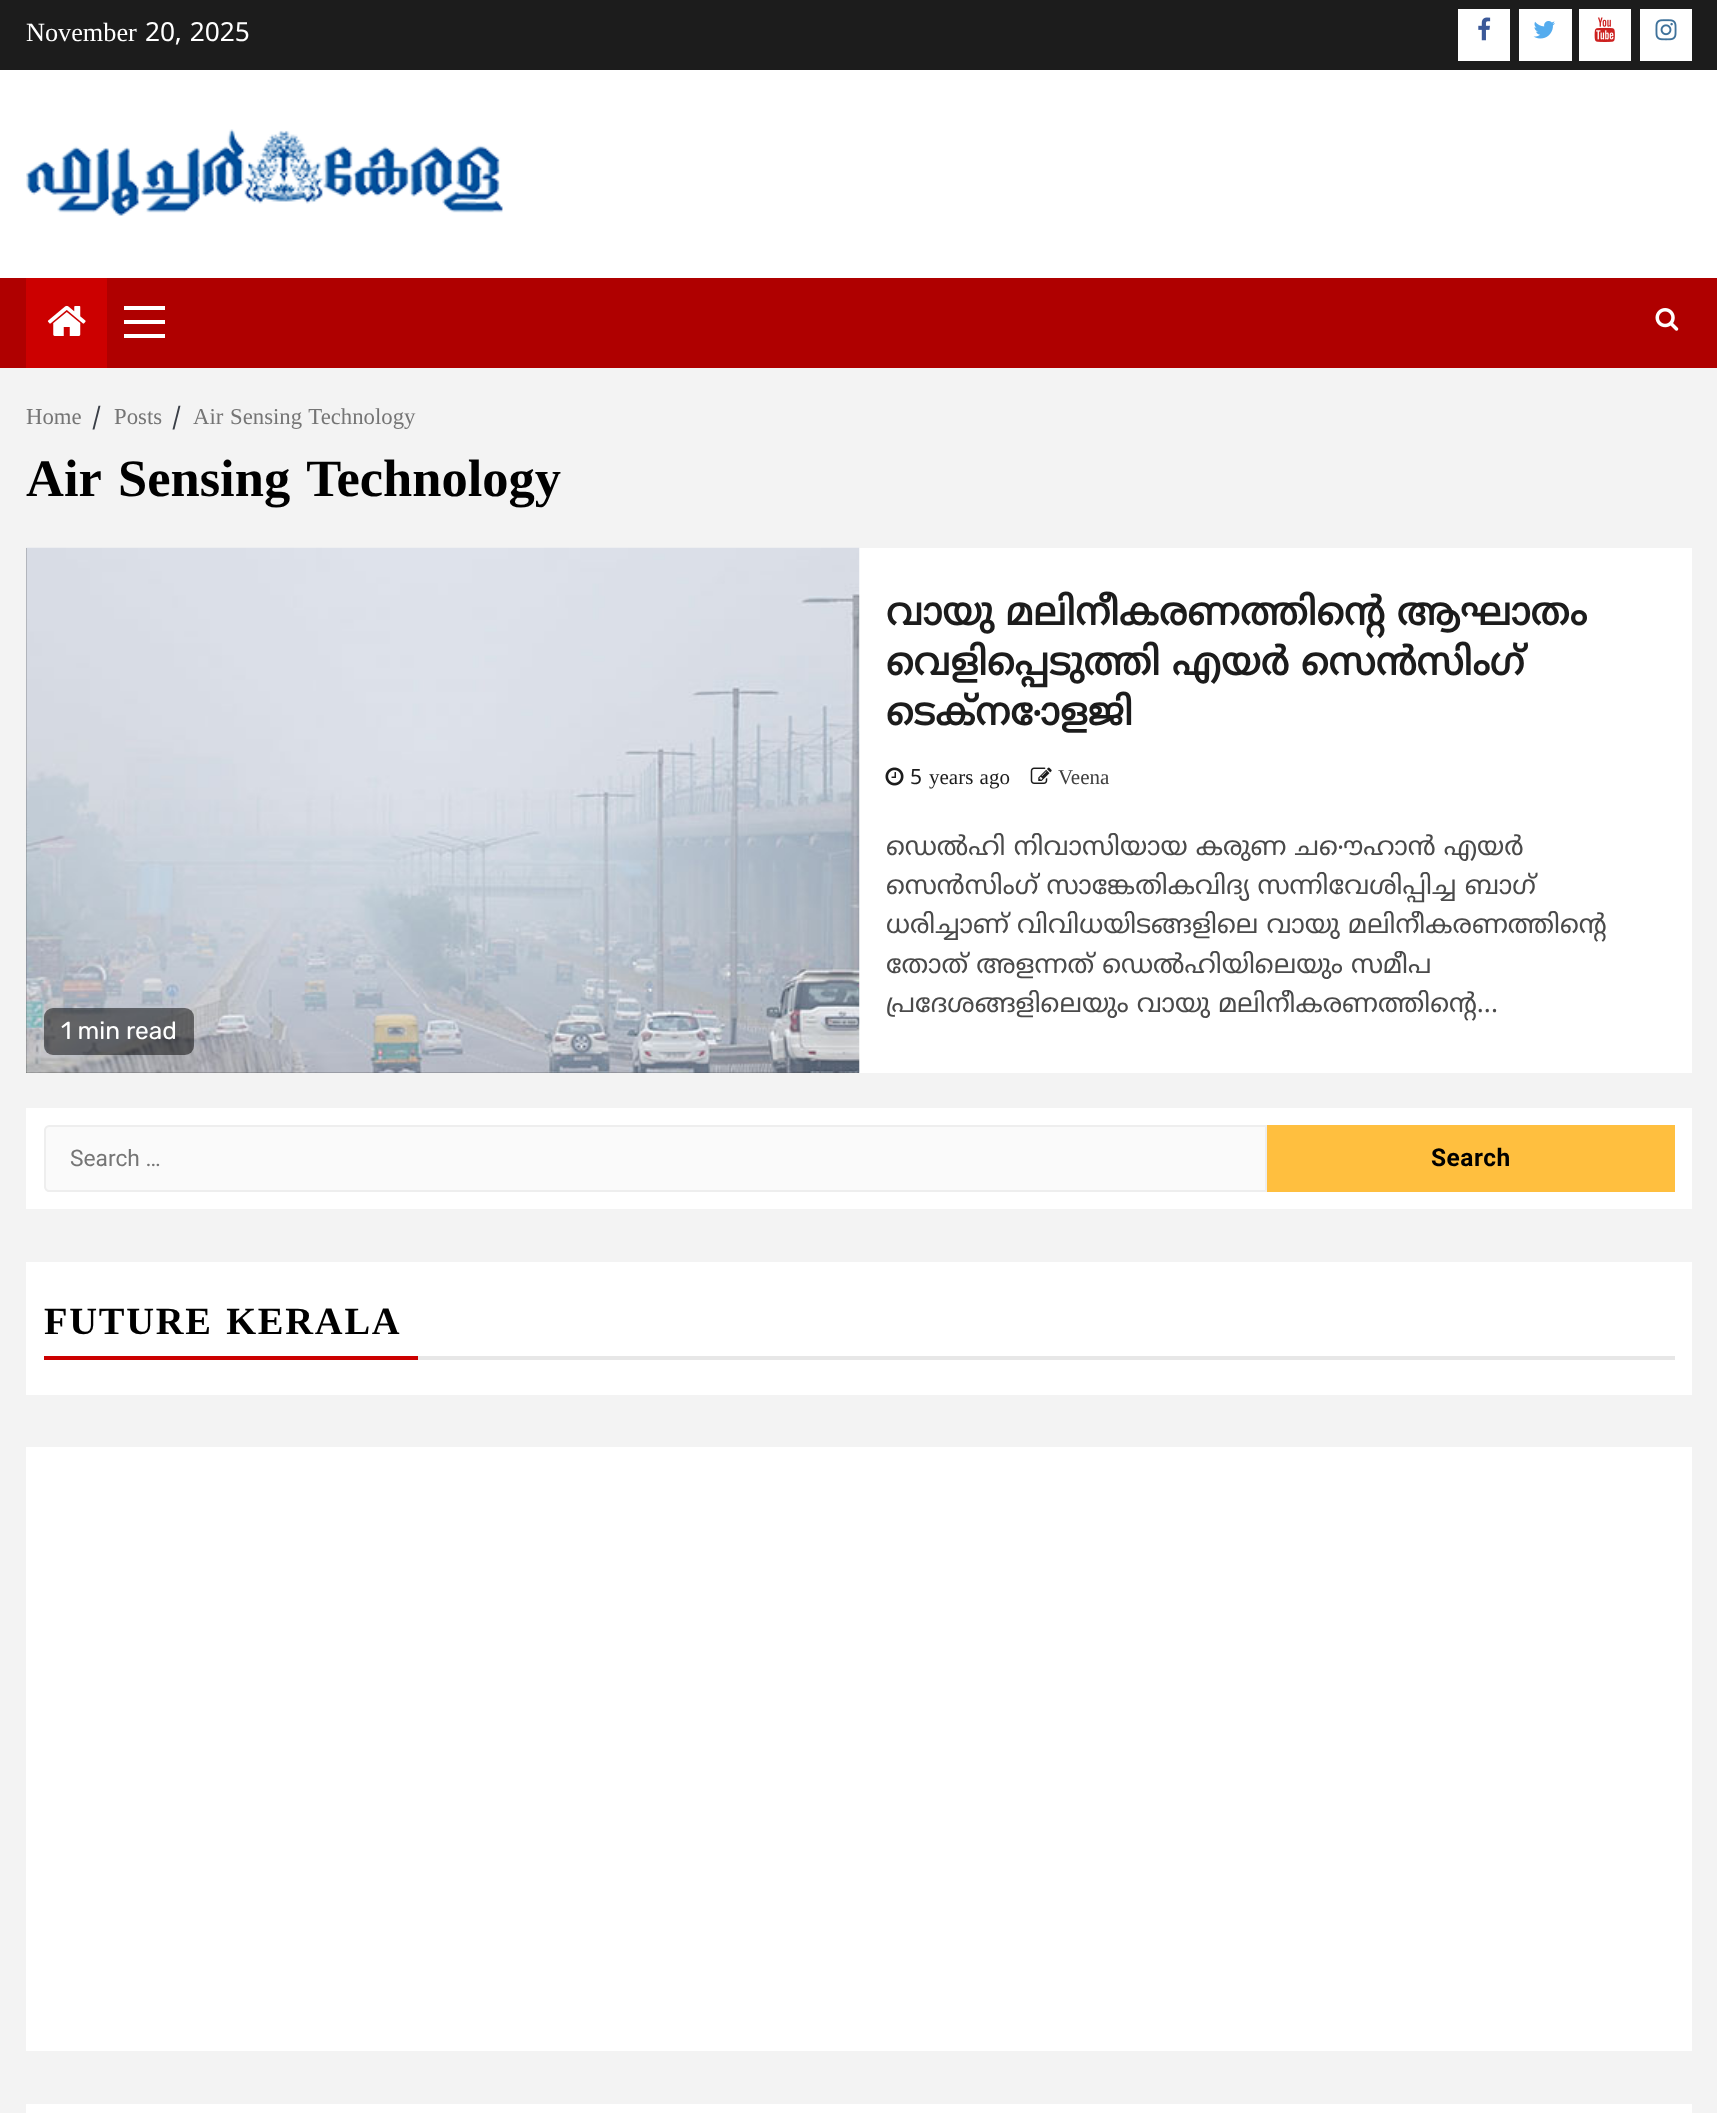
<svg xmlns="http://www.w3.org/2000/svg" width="1717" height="2113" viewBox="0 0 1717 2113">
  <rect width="100%" height="100%" fill="#f3f3f3"/>
  <rect x="0" y="0" width="1717" height="70" fill="#1c1c1c"/>
  <text x="26" y="41" font-family="Liberation Serif" font-size="26.25" fill="#ffffff">November</text>
  <text x="145" y="41" font-family="Noto Sans Malayalam UI" font-size="26.25" fill="#ffffff">20, 2025</text>
  <rect x="1458" y="9" width="52" height="52" fill="#ffffff"/>
  <image x="1478" y="17" width="13" height="24" href="img1.png"/>
  <rect x="1519" y="9" width="53" height="52" fill="#ffffff"/>
  <image x="1533" y="21" width="22" height="18" href="img2.png"/>
  <rect x="1579" y="9" width="52" height="52" fill="#ffffff"/>
  <image x="1594" y="17" width="21" height="25" href="img3.png"/>
  <rect x="1640" y="9" width="52" height="52" fill="#ffffff"/>
  <image x="1655" y="19" width="22" height="22" href="img4.png"/>
  <rect x="0" y="70" width="1717" height="208" fill="#ffffff"/>
  <image x="26" y="129" width="477" height="87" href="img5.png"/>
  <rect x="0" y="278" width="1717" height="90" fill="#af0000"/>
  <rect x="26" y="278" width="81" height="90" fill="#cc0000"/>
  <image x="47" y="305" width="39" height="31" href="img6.png"/>
  <rect x="124" y="320" width="41" height="4" fill="#ffffff"/>
  <rect x="124" y="306" width="41" height="4" fill="#ffffff"/>
  <rect x="124" y="334" width="41" height="4" fill="#ffffff"/>
  <image x="1655" y="308" width="24" height="23" href="img7.png"/>
  <text x="26" y="424" font-family="Liberation Serif" font-size="22.75" fill="#757575">Home</text>
  <text x="92" y="424" font-family="Noto Sans Malayalam UI" font-size="22.75" fill="#393e46">/</text>
  <text x="114" y="424" font-family="Liberation Serif" font-size="22.75" fill="#757575">Posts</text>
  <text x="172" y="424" font-family="Noto Sans Malayalam UI" font-size="22.75" fill="#393e46">/</text>
  <text x="193" y="424" word-spacing="1" font-family="Liberation Serif" font-size="22.75" fill="#757575">Air Sensing Technology</text>
  <text x="26" y="496" word-spacing="4" font-family="Liberation Serif" font-size="52.5" font-weight="bold" fill="#000000">Air Sensing Technology</text>
  <rect x="859" y="548" width="833" height="525" fill="#ffffff"/>
  <text x="886" y="625" font-family="Noto Sans Malayalam UI" font-size="38.5" font-weight="bold" fill="#1c1c1c">വായു മലിനീകരണത്തിന്റെ ആഘാതം</text>
  <text x="886" y="675" font-family="Noto Sans Malayalam UI" font-size="38.5" font-weight="bold" fill="#1c1c1c">വെളിപ്പെടുത്തി എയർ സെൻസിംഗ്</text>
  <text x="886" y="725" font-family="Noto Sans Malayalam UI" font-size="38.5" font-weight="bold" fill="#1c1c1c">ടെക്നോളജി</text>
  <image x="885" y="767" width="19" height="19" href="img8.png"/>
  <text x="910" y="784" font-family="Noto Sans Malayalam UI" font-size="21" fill="#1c1c1c">5</text>
  <text x="929" y="784" word-spacing="1" font-family="Liberation Serif" font-size="21" fill="#1c1c1c">years ago</text>
  <image x="1030" y="767" width="22" height="17" href="img9.png"/>
  <text x="1058" y="784" font-family="Liberation Serif" font-size="21" fill="#404040">Veena</text>
  <text x="886" y="855" font-family="Noto Sans Malayalam UI" font-size="26.25" fill="#4a4a4a">ഡെൽഹി നിവാസിയായ കരുണ ചൌഹാൻ എയർ</text>
  <text x="886" y="894" font-family="Noto Sans Malayalam UI" font-size="26.25" fill="#4a4a4a">സെൻസിംഗ് സാങ്കേതികവിദ്യ സന്നിവേശിപ്പിച്ച ബാഗ്</text>
  <text x="886" y="933" font-family="Noto Sans Malayalam UI" font-size="26.25" fill="#4a4a4a">ധരിച്ചാണ് വിവിധയിടങ്ങളിലെ വായു മലിനീകരണത്തിന്റെ</text>
  <text x="886" y="973" font-family="Noto Sans Malayalam UI" font-size="26.25" fill="#4a4a4a">തോത് അളന്നത് ഡെൽഹിയിലെയും സമീപ</text>
  <text x="886" y="1012" font-family="Noto Sans Malayalam UI" font-size="26.25" fill="#4a4a4a">പ്രദേശങ്ങളിലെയും വായു മലിനീകരണത്തിന്റെ...</text>
  <rect x="26" y="548" width="833" height="525" fill="#404040"/>
  <image x="26" y="547" width="834" height="526" href="img10.png"/>
  <rect x="44" y="1008" width="150" height="47" rx="9" fill="#000000" fill-opacity="0.5"/>
  <text x="61" y="1039" font-family="Rubik" font-size="24.5" fill="#ffffff">1 min read</text>
  <rect x="26" y="1108" width="1666" height="101" fill="#ffffff"/>
  <path d="M49 1126H1266V1191H49C47 1191 45 1189 45 1187V1130C45 1128 47 1126 49 1126Z" fill="#fafafa" stroke="#eeeeee" stroke-width="2"/>
  <text x="70" y="1166" font-family="Roboto" font-size="22.75" fill="#757575">Search …</text>
  <rect x="1267" y="1125" width="408" height="67" fill="#ffbf3f"/>
  <text x="1431" y="1166" font-family="Roboto" font-size="24.5" font-weight="bold" letter-spacing="0.5" fill="#000000">Search</text>
  <rect x="26" y="1262" width="1666" height="133" fill="#ffffff"/>
  <rect x="44" y="1356" width="374" height="4" fill="#cc0000"/>
  <text x="44" y="1334" word-spacing="2" font-family="Liberation Serif" font-size="38.5" font-weight="bold" letter-spacing="1.75" fill="#000000">FUTURE KERALA</text>
  <rect x="418" y="1356" width="1257" height="4" fill="#e7e7e7"/>
  <rect x="26" y="1447" width="1666" height="604" fill="#ffffff"/>
  <rect x="26" y="2104" width="1666" height="9" fill="#ffffff"/>
</svg>
